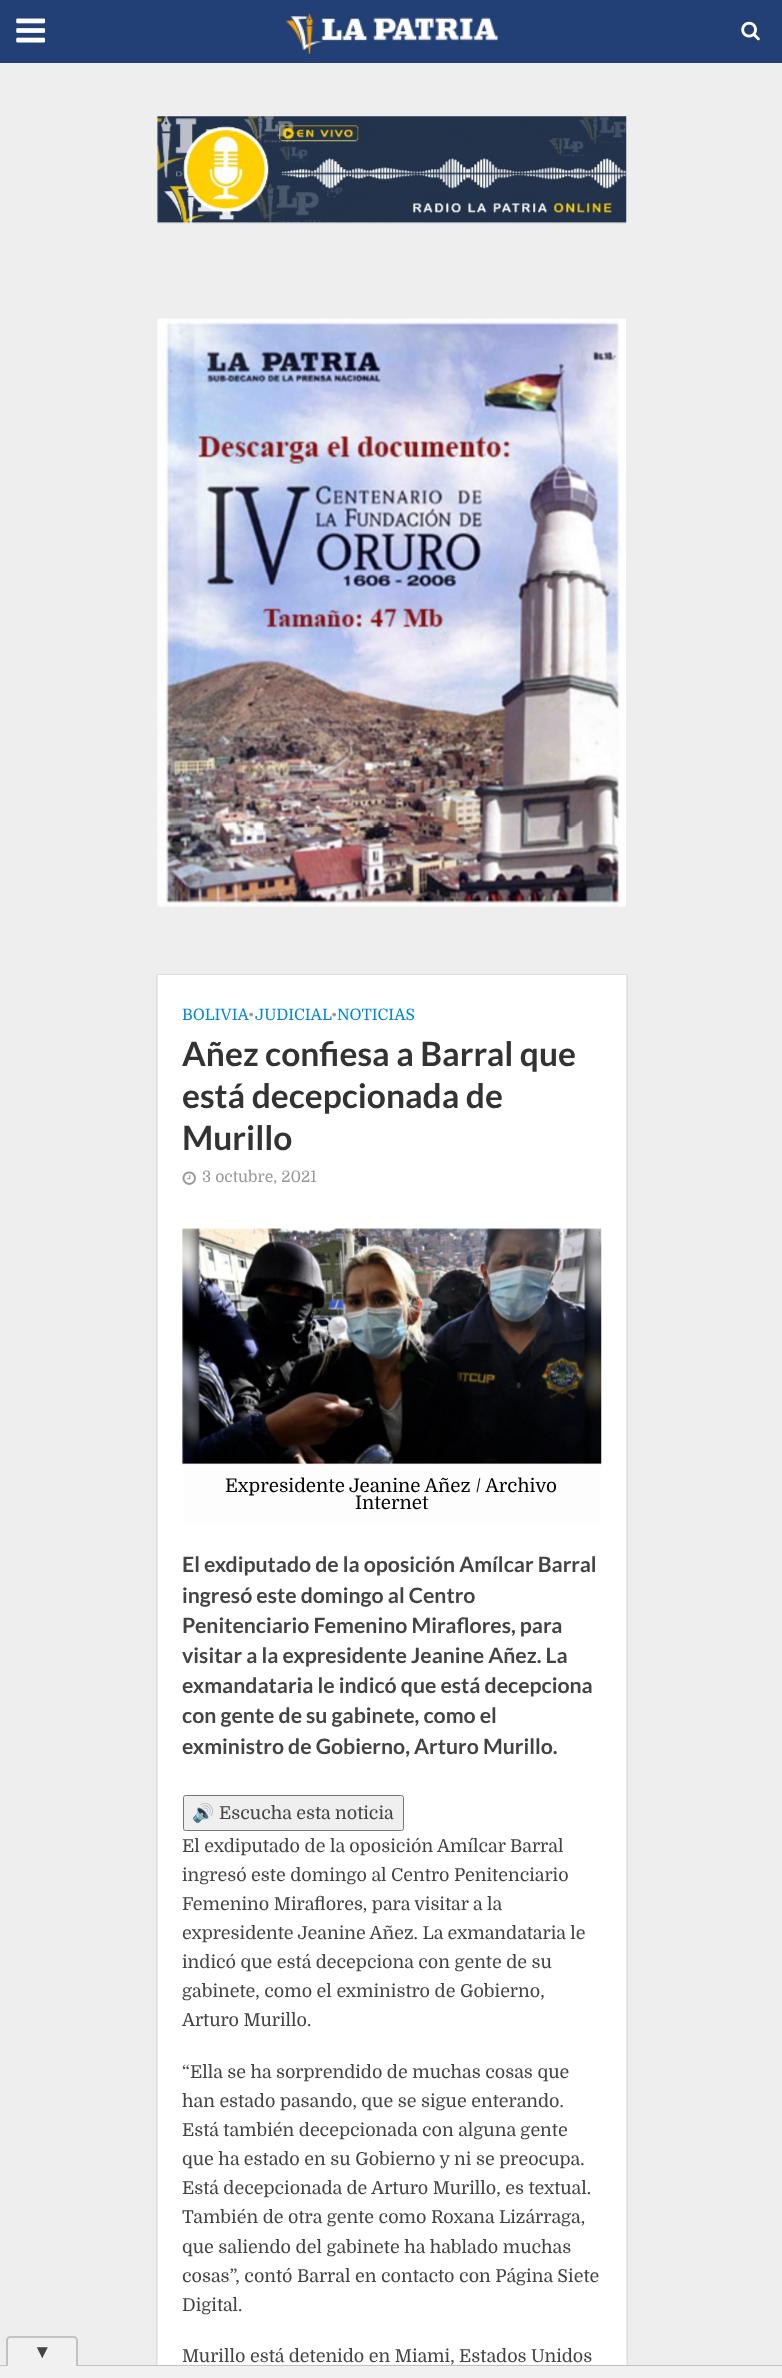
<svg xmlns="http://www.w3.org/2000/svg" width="782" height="2378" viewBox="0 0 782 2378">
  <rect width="100%" height="100%" fill="#eeeeee"/>
  <rect x="0" y="0" width="782" height="63" fill="#224075"/>
  <image x="16" y="18" width="30" height="25" href="img1.png"/>
  <image x="286" y="13" width="212" height="41" href="img2.png"/>
  <image x="741" y="21" width="19" height="20" href="img3.png"/>
  <image x="157" y="116" width="470" height="108" href="img4.png"/>
  <image x="157" y="318" width="469" height="589" href="img5.png"/>
  <rect x="156.5" y="974.5" width="471" height="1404" fill="none" stroke="#dddddd"/>
  <rect x="0" y="2366" width="782" height="12" fill="#f1f1f1"/>
  <rect x="0" y="2365" width="782" height="1" fill="#c2c2c2"/>
  <path d="M10 2336H74C76 2336 78 2338 78 2340V2366H6V2340C6 2338 8 2336 10 2336Z" fill="#f1f1f1"/>
  <path d="M10 2336H74C76 2336 78 2338 78 2340V2366H6V2340C6 2338 8 2336 10 2336ZM10 2338H74C75 2338 76 2339 76 2340V2366H8V2340C8 2339 9 2338 10 2338Z" fill="#c2c2c2" fill-rule="evenodd"/>
  <text x="33" y="2358" font-family="Liberation Serif" font-size="18.75" fill="#444444">▼</text>
  <rect x="158" y="975" width="468" height="1390" fill="#ffffff"/>
  <text x="182" y="1020" font-family="Domine" font-size="15.75" fill="#0288d1">BOLIVIA</text>
  <text x="248" y="1020" font-family="Domine" font-size="15.75" fill="#999999">•</text>
  <text x="255" y="1020" font-family="Domine" font-size="15.75" fill="#0288d1">JUDICIAL</text>
  <text x="331" y="1020" font-family="Domine" font-size="15.75" fill="#999999">•</text>
  <text x="337" y="1020" font-family="Domine" font-size="15.75" fill="#0288d1">NOTICIAS</text>
  <text x="182" y="1066" font-family="Lato" font-size="33.6" font-weight="bold" fill="#333333">Añez confiesa a Barral que</text>
  <text x="182" y="1108" font-family="Lato" font-size="33.6" font-weight="bold" fill="#333333">está decepcionada de</text>
  <text x="182" y="1150" font-family="Lato" font-size="33.6" font-weight="bold" fill="#333333">Murillo</text>
  <image x="182" y="1171" width="14" height="14" href="img6.png"/>
  <text x="202" y="1182" font-family="Domine" font-size="15.75" fill="#999999">3 octubre, 2021</text>
  <rect x="183" y="1229" width="418" height="296" fill="#f3f3f3"/>
  <image x="182" y="1228" width="420" height="237" href="img7.png"/>
  <rect x="183" y="1464" width="418" height="61" fill="#ffffff" fill-opacity="0.8"/>
  <text x="225" y="1492" font-family="Domine" font-size="18.75" fill="#000000">Expresidente Jeanine Añez / Archivo</text>
  <text x="355" y="1509" font-family="Domine" font-size="18.75" fill="#000000">Internet</text>
  <text x="182" y="1572" font-family="Lato" font-size="21.25" font-weight="bold" fill="#444444">El exdiputado de la oposición Amílcar Barral</text>
  <text x="182" y="1603" font-family="Lato" font-size="21.25" font-weight="bold" fill="#444444">ingresó este domingo al Centro</text>
  <text x="182" y="1633" font-family="Lato" font-size="21.25" font-weight="bold" fill="#444444">Penitenciario Femenino Miraflores, para</text>
  <text x="182" y="1663" font-family="Lato" font-size="21.25" font-weight="bold" fill="#444444">visitar a la expresidente Jeanine Añez. La</text>
  <text x="182" y="1693" font-family="Lato" font-size="21.25" font-weight="bold" fill="#444444">exmandataria le indicó que está decepciona</text>
  <text x="182" y="1723" font-family="Lato" font-size="21.25" font-weight="bold" fill="#444444">con gente de su gabinete, como el</text>
  <text x="182" y="1754" font-family="Lato" font-size="21.25" font-weight="bold" fill="#444444">exministro de Gobierno, Arturo Murillo.</text>
  <rect x="183.5" y="1795.5" width="220" height="35" rx="2" fill="#efefef" stroke="#767676"/>
  <text x="192" y="1819" font-family="Noto Color Emoji" font-size="17.9" fill="#444444">🔊</text>
  <text x="219" y="1819" font-family="Domine" font-size="17.9" fill="#444444">Escucha esta noticia</text>
  <text x="182" y="1852" font-family="Domine" font-size="17.9" fill="#444444">El exdiputado de la oposición Amílcar Barral</text>
  <text x="182" y="1881" font-family="Domine" font-size="17.9" fill="#444444">ingresó este domingo al Centro Penitenciario</text>
  <text x="182" y="1910" font-family="Domine" font-size="17.9" fill="#444444">Femenino Miraflores, para visitar a la</text>
  <text x="182" y="1939" font-family="Domine" font-size="17.9" fill="#444444">expresidente Jeanine Añez. La exmandataria le</text>
  <text x="182" y="1968" font-family="Domine" font-size="17.9" fill="#444444">indicó que está decepciona con gente de su</text>
  <text x="182" y="1997" font-family="Domine" font-size="17.9" fill="#444444">gabinete, como el exministro de Gobierno,</text>
  <text x="182" y="2026" font-family="Domine" font-size="17.9" fill="#444444">Arturo Murillo.</text>
  <text x="182" y="2078" font-family="Domine" font-size="17.9" fill="#444444">“Ella se ha sorprendido de muchas cosas que</text>
  <text x="182" y="2107" font-family="Domine" font-size="17.9" fill="#444444">han estado pasando, que se sigue enterando.</text>
  <text x="182" y="2136" font-family="Domine" font-size="17.9" fill="#444444">Está también decepcionada con alguna gente</text>
  <text x="182" y="2165" font-family="Domine" font-size="17.9" fill="#444444">que ha estado en su Gobierno y ni se preocupa.</text>
  <text x="182" y="2194" font-family="Domine" font-size="17.9" fill="#444444">Está decepcionada de Arturo Murillo, es textual.</text>
  <text x="182" y="2223" font-family="Domine" font-size="17.9" fill="#444444">También de otra gente como Roxana Lizárraga,</text>
  <text x="182" y="2253" font-family="Domine" font-size="17.9" fill="#444444">que saliendo del gabinete ha hablado muchas</text>
  <text x="182" y="2282" font-family="Domine" font-size="17.9" fill="#444444">cosas”, contó Barral en contacto con Página Siete</text>
  <text x="182" y="2311" font-family="Domine" font-size="17.9" fill="#444444">Digital.</text>
  <text x="182" y="2362" font-family="Domine" font-size="17.9" fill="#444444">Murillo está detenido en Miami, Estados Unidos</text>
</svg>
